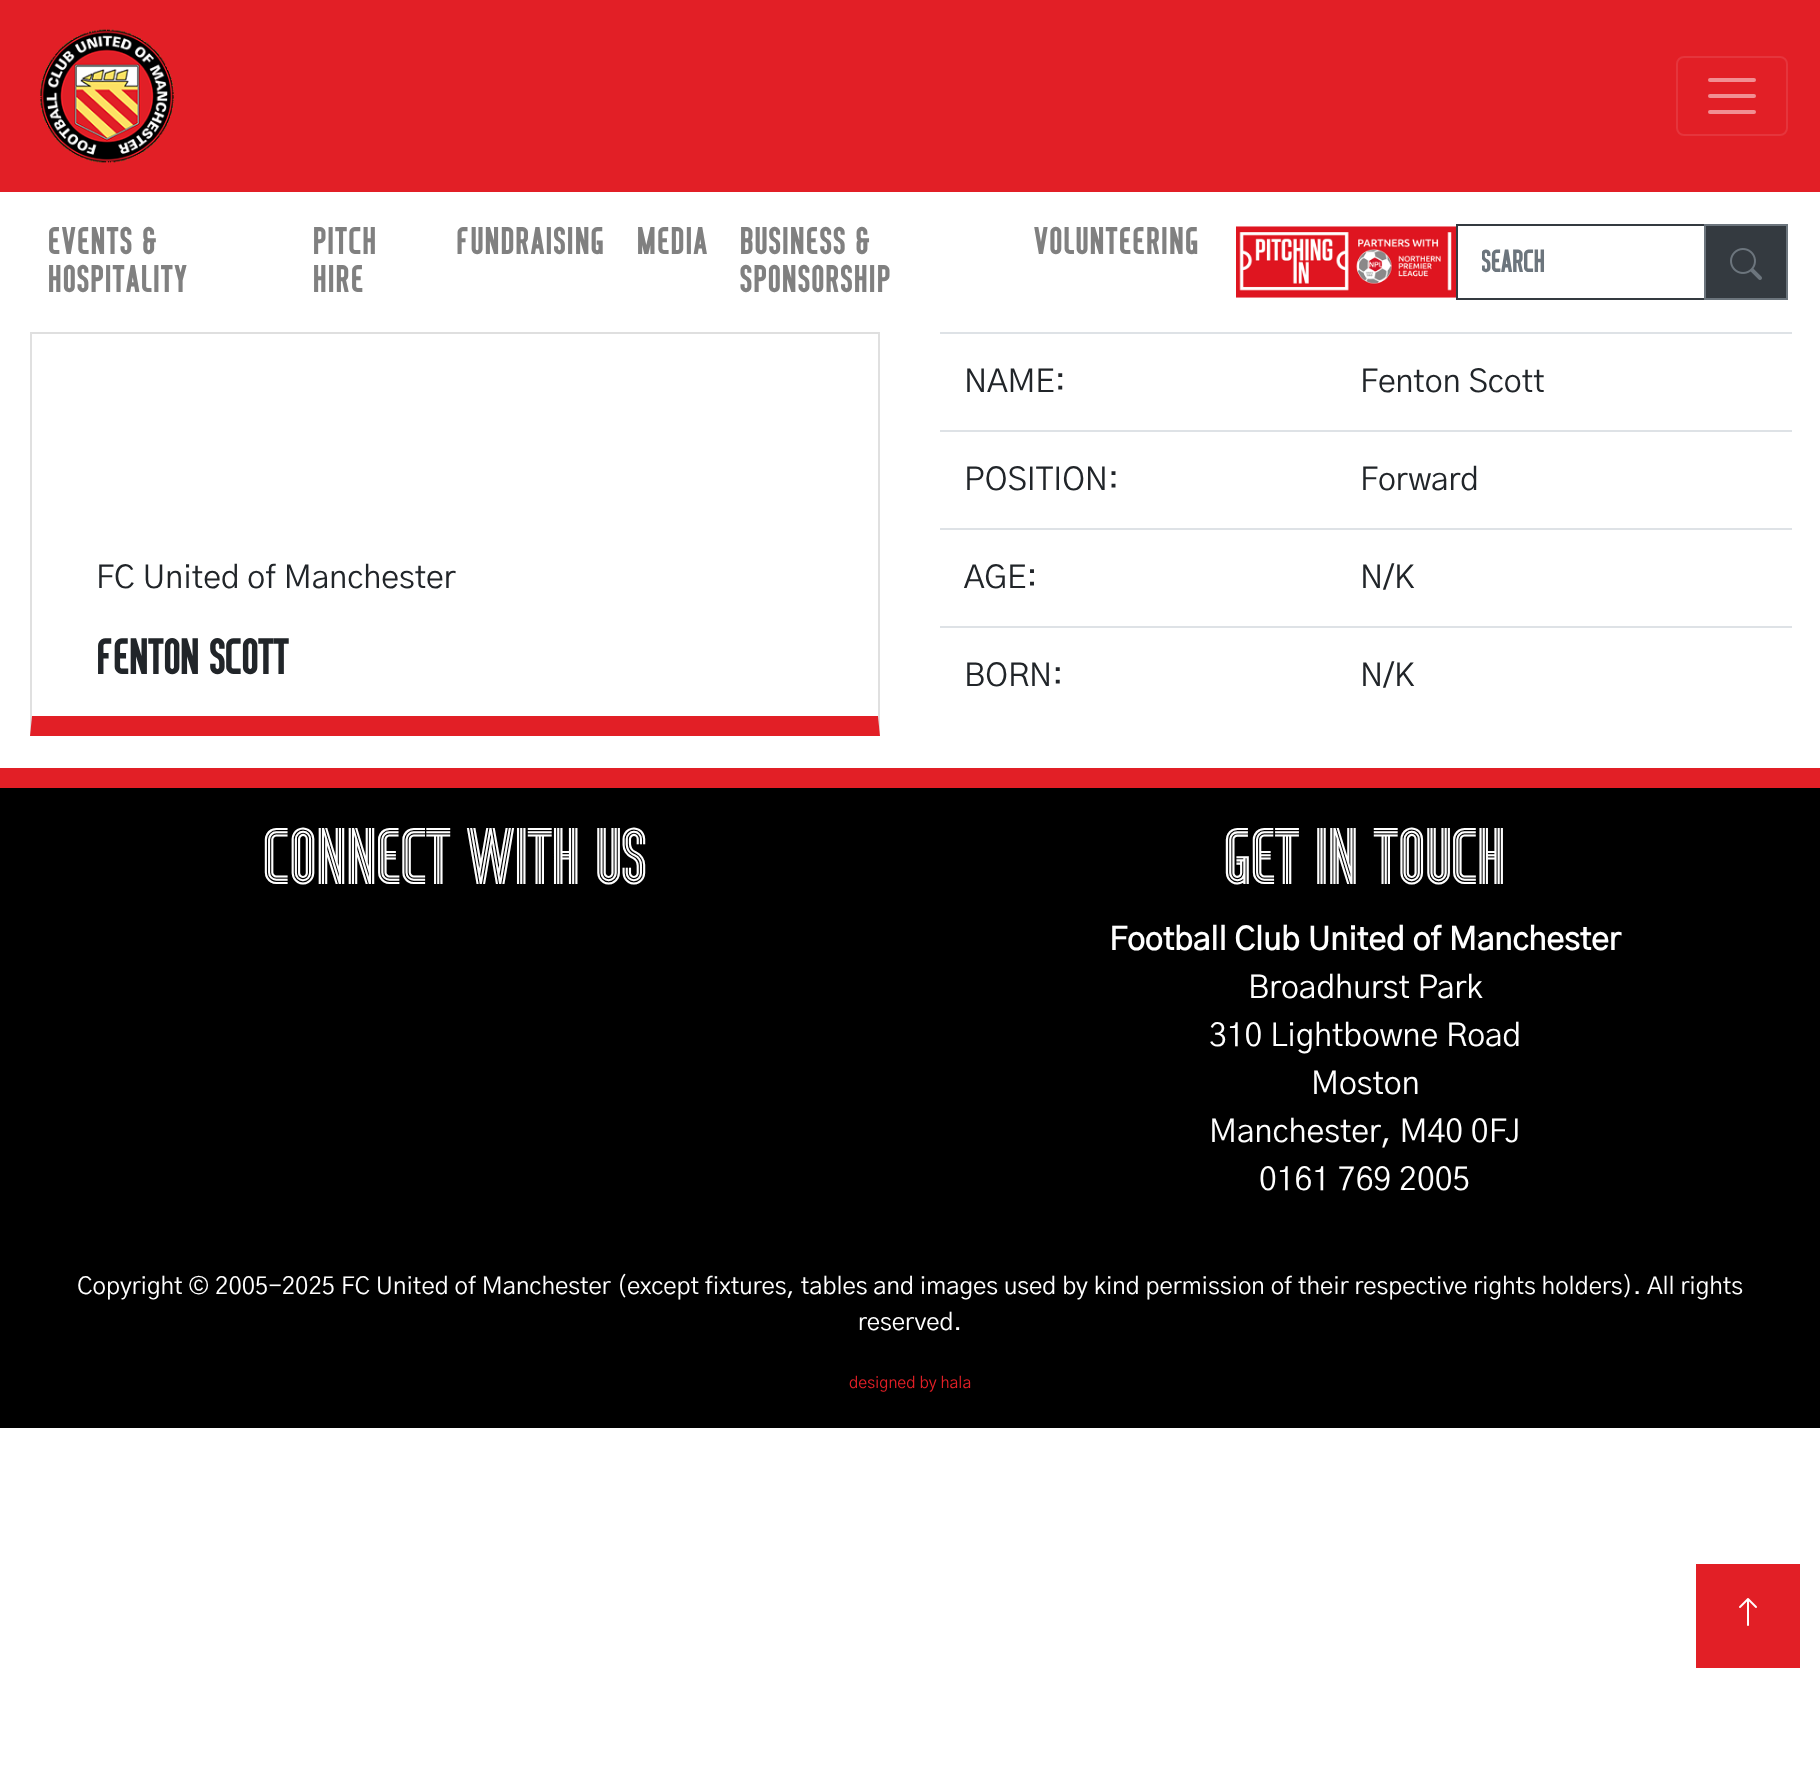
<svg xmlns="http://www.w3.org/2000/svg" width="1820" height="1772" viewBox="0 0 1820 1772">
  <defs>
    <clipPath id="clip1"><rect x="1482" y="246" width="198" height="32"/></clipPath>
  </defs>
  <rect width="100%" height="100%" fill="#ffffff"/>
  <rect x="0" y="0" width="1820" height="192" fill="#e21f26"/>
  <image x="40" y="29" width="134" height="134" href="img1.png"/>
  <rect x="1677" y="57" width="110" height="78" rx="7" fill="none" stroke="#e5353c" stroke-width="2"/>
  <path d="M1710 80H1754M1710 96H1754M1710 112H1754" fill="none" stroke="#f18f93" stroke-width="4" stroke-linecap="round"/>
  <text x="48" y="254" font-family="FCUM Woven" font-size="38.5" font-weight="bold" letter-spacing="1.6" fill="#808080">EVENTS &amp;</text>
  <text x="48" y="292" font-family="FCUM Woven" font-size="38.5" font-weight="bold" letter-spacing="1.6" fill="#808080">HOSPITALITY</text>
  <text x="313" y="254" font-family="FCUM Woven" font-size="38.5" font-weight="bold" letter-spacing="1.6" fill="#808080">PITCH</text>
  <text x="313" y="292" font-family="FCUM Woven" font-size="38.5" font-weight="bold" letter-spacing="1.6" fill="#808080">HIRE</text>
  <text x="456" y="254" font-family="FCUM Woven" font-size="38.5" font-weight="bold" letter-spacing="1.6" fill="#808080">FUNDRAISING</text>
  <text x="637" y="254" font-family="FCUM Woven" font-size="38.5" font-weight="bold" letter-spacing="1.6" fill="#808080">MEDIA</text>
  <text x="740" y="254" font-family="FCUM Woven" font-size="38.5" font-weight="bold" letter-spacing="1.6" fill="#808080">BUSINESS &amp;</text>
  <text x="740" y="292" font-family="FCUM Woven" font-size="38.5" font-weight="bold" letter-spacing="1.6" fill="#808080">SPONSORSHIP</text>
  <text x="1034" y="254" font-family="FCUM Woven" font-size="38.5" font-weight="bold" letter-spacing="1.6" fill="#808080">VOLUNTEERING</text>
  <image x="1236" y="226" width="220" height="72" href="img2.png"/>
  <rect x="1457" y="225" width="248" height="74" fill="none" stroke="#343a40" stroke-width="2"/>
  <g clip-path="url(#clip1)">
    <text x="1481" y="272" font-family="FCUM Woven" font-size="32" font-weight="bold" fill="#6c757d">Search</text>
  </g>
  <rect x="1705" y="225" width="82" height="74" fill="#343a40" stroke="#6c757d" stroke-width="2"/>
  <image x="1730" y="248" width="32" height="32" href="img3.png"/>
  <path d="M30 332H880L878 334H32Z" fill="#dfdfdf"/>
  <path d="M880 332V736L878 716V334Z" fill="#000000" fill-opacity="0.12"/>
  <path d="M880 736H30L32 716H878Z" fill="#e21f26"/>
  <path d="M30 736V332L32 334V716Z" fill="#000000" fill-opacity="0.12"/>
  <text x="96" y="588" font-family="'Gothic A1'" font-size="32" fill="#212529">FC United of Manchester</text>
  <text x="96" y="674" font-family="FCUM Woven" font-size="51" font-weight="bold" fill="#212529">FENTON SCOTT</text>
  <text x="964" y="392" font-family="'Gothic A1'" font-size="32" fill="#212529">NAME:</text>
  <rect x="940" y="332" width="852" height="2" fill="#dee2e6"/>
  <text x="1360" y="392" font-family="'Gothic A1'" font-size="32" fill="#212529">Fenton Scott</text>
  <text x="964" y="490" font-family="'Gothic A1'" font-size="32" fill="#212529">POSITION:</text>
  <rect x="940" y="430" width="852" height="2" fill="#dee2e6"/>
  <text x="1360" y="490" font-family="'Gothic A1'" font-size="32" fill="#212529">Forward</text>
  <text x="964" y="588" font-family="'Gothic A1'" font-size="32" fill="#212529">AGE:</text>
  <rect x="940" y="528" width="852" height="2" fill="#dee2e6"/>
  <text x="1360" y="588" font-family="'Gothic A1'" font-size="32" fill="#212529">N/K</text>
  <text x="964" y="686" font-family="'Gothic A1'" font-size="32" fill="#212529">BORN:</text>
  <rect x="940" y="626" width="852" height="2" fill="#dee2e6"/>
  <text x="1360" y="686" font-family="'Gothic A1'" font-size="32" fill="#212529">N/K</text>
  <rect x="0" y="788" width="1820" height="640" fill="#000000"/>
  <rect x="0" y="768" width="1820" height="20" fill="#e21f26"/>
  <text x="263" y="884" font-family="FCUM Woven" font-size="80" fill="#ffffff">CONNECT WITH US</text>
  <text x="1224" y="884" font-family="FCUM Woven" font-size="80" fill="#ffffff">GET IN TOUCH</text>
  <text x="1109" y="950" font-family="'Gothic A1'" font-size="32" font-weight="bold" fill="#ffffff">Football Club United of Manchester</text>
  <text x="1248" y="998" font-family="'Gothic A1'" font-size="32" fill="#ffffff">Broadhurst Park</text>
  <text x="1209" y="1046" font-family="'Gothic A1'" font-size="32" fill="#ffffff">310 Lightbowne Road</text>
  <text x="1311" y="1094" font-family="'Gothic A1'" font-size="32" fill="#ffffff">Moston</text>
  <text x="1209" y="1142" font-family="'Gothic A1'" font-size="32" fill="#ffffff">Manchester, M40 0FJ</text>
  <text x="1259" y="1190" font-family="'Gothic A1'" font-size="32" fill="#ffffff">0161 769 2005</text>
  <text x="77" y="1294" font-family="'Gothic A1'" font-size="24" fill="#ffffff">Copyright © 2005-2025 FC United of Manchester (except fixtures, tables and images used by kind permission of their respective rights holders). All rights</text>
  <text x="858" y="1330" font-family="'Gothic A1'" font-size="24" fill="#ffffff">reserved.</text>
  <text x="849" y="1388" font-family="'Gothic A1'" font-size="16" fill="#e21f26">designed by hala</text>
  <rect x="1696" y="1564" width="104" height="104" fill="#e21f26"/>
  <image x="1739" y="1598" width="18" height="28" href="img4.png"/>
</svg>
